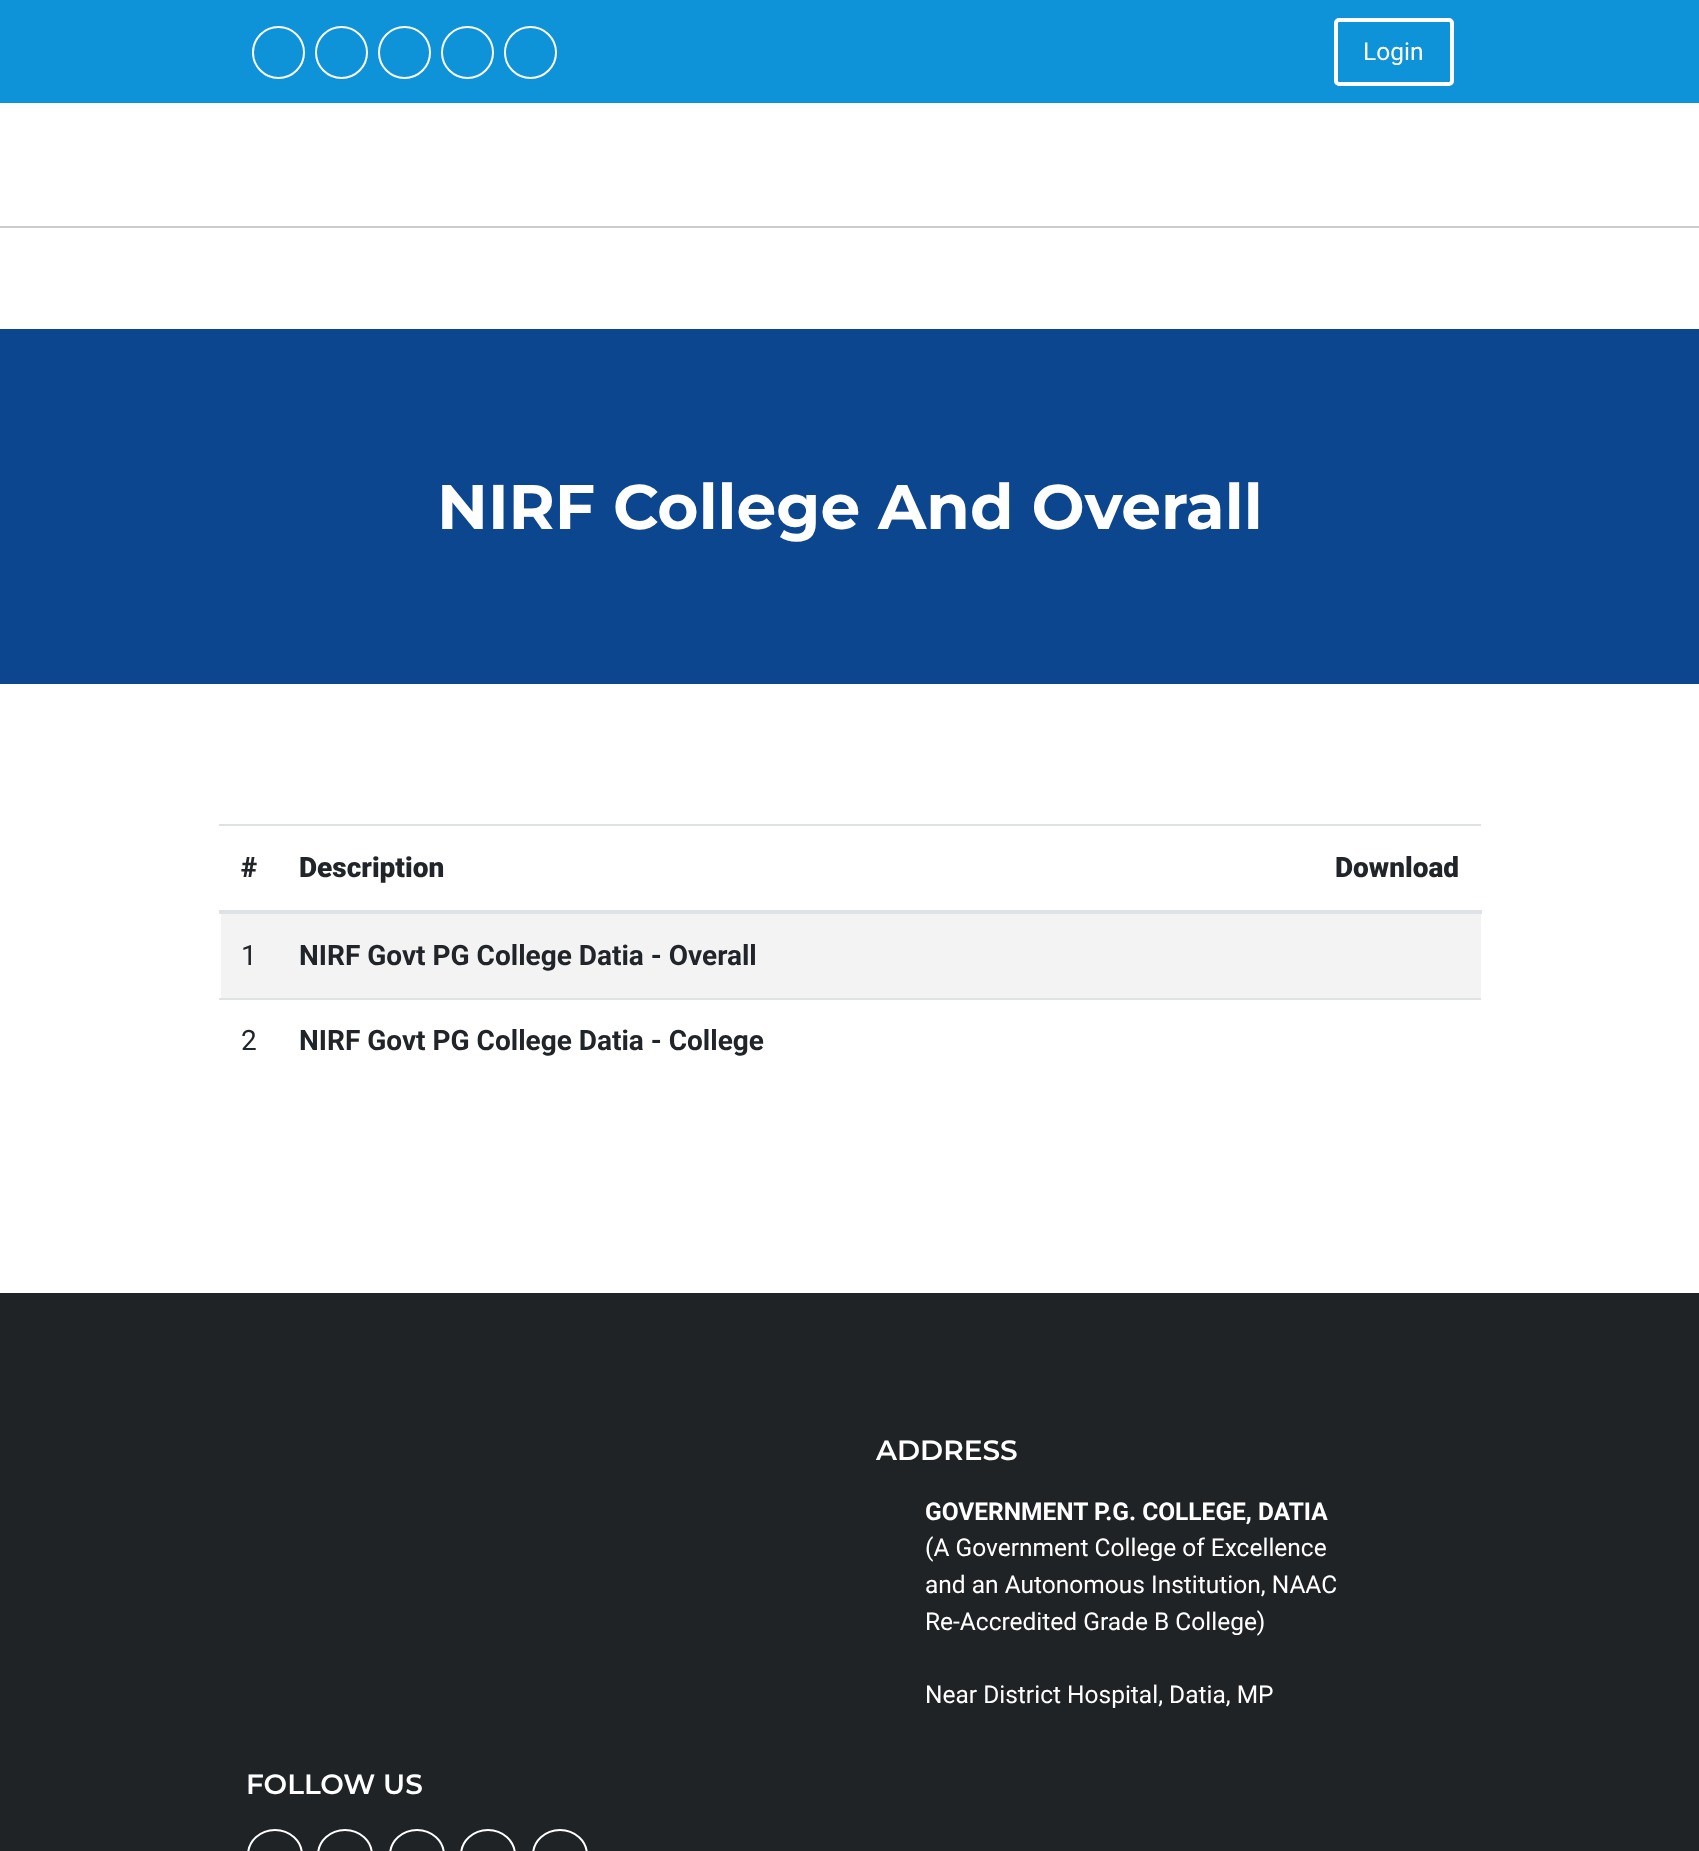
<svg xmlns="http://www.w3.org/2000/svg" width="1699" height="1851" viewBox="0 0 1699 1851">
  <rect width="100%" height="100%" fill="#ffffff"/>
  <rect x="0" y="0" width="1699" height="103" fill="#0e93d8"/>
  <circle cx="278.5" cy="52.5" r="25.5" fill="none" stroke="#ffffff" stroke-width="2"/>
  <circle cx="341.5" cy="52.5" r="25.5" fill="none" stroke="#ffffff" stroke-width="2"/>
  <circle cx="404.5" cy="52.5" r="25.5" fill="none" stroke="#ffffff" stroke-width="2"/>
  <circle cx="467.5" cy="52.5" r="25.5" fill="none" stroke="#ffffff" stroke-width="2"/>
  <circle cx="530.5" cy="52.5" r="25.5" fill="none" stroke="#ffffff" stroke-width="2"/>
  <rect x="1336" y="20" width="116" height="64" rx="3" fill="none" stroke="#ffffff" stroke-width="4"/>
  <text x="1363" y="60" font-family="Roboto" font-size="24.5" fill="#ffffff">Login</text>
  <rect x="0" y="226" width="1699" height="2" fill="#cccccc"/>
  <rect x="0" y="329" width="1699" height="355" fill="#0c468f"/>
  <text x="437" y="529" font-family="Montserrat" font-size="63" font-weight="bold" fill="#ffffff">NIRF College And Overall</text>
  <text x="241" y="877" font-family="Roboto" font-size="28" font-weight="900" fill="#212529">#</text>
  <text x="299" y="877" font-family="Roboto" font-size="28" font-weight="900" fill="#212529">Description</text>
  <rect x="219" y="824" width="1262" height="2" fill="#dee2e6"/>
  <rect x="219" y="910" width="1263" height="4" fill="#dee2e6"/>
  <text x="1335" y="877" font-family="Roboto" font-size="28" font-weight="900" fill="#212529">Download</text>
  <rect x="221" y="914" width="1260" height="84" fill="#f3f3f3"/>
  <text x="241" y="965" font-family="Roboto" font-size="28" fill="#212529">1</text>
  <text x="299" y="965" font-family="Roboto" font-size="28" font-weight="bold" fill="#212529">NIRF Govt PG College Datia - Overall</text>
  <rect x="219" y="998" width="1262" height="2" fill="#dee2e6"/>
  <text x="241" y="1050" font-family="Roboto" font-size="28" fill="#212529">2</text>
  <text x="299" y="1050" font-family="Roboto" font-size="28" font-weight="bold" fill="#212529">NIRF Govt PG College Datia - College</text>
  <rect x="0" y="1293" width="1699" height="558" fill="#202325"/>
  <text x="876" y="1460" font-family="Montserrat" font-size="28" font-weight="600" fill="#ffffff">ADDRESS</text>
  <text x="925" y="1520" font-family="Roboto" font-size="24.5" font-weight="bold" fill="#ffffff">GOVERNMENT P.G. COLLEGE, DATIA</text>
  <text x="925" y="1556" font-family="Roboto" font-size="24.5" fill="#ffffff">(A Government College of Excellence</text>
  <text x="925" y="1593" font-family="Roboto" font-size="24.5" fill="#ffffff">and an Autonomous Institution, NAAC</text>
  <text x="925" y="1630" font-family="Roboto" font-size="24.5" fill="#ffffff">Re-Accredited Grade B College)</text>
  <text x="925" y="1703" font-family="Roboto" font-size="24.5" fill="#ffffff">Near District Hospital, Datia, MP</text>
  <text x="246" y="1794" font-family="Montserrat" font-size="28" font-weight="600" fill="#ffffff">FOLLOW US</text>
  <rect x="248" y="1830" width="54" height="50" rx="27" fill="none" stroke="#ffffff" stroke-width="2"/>
  <rect x="318" y="1830" width="54" height="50" rx="27" fill="none" stroke="#ffffff" stroke-width="2"/>
  <rect x="390" y="1830" width="54" height="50" rx="27" fill="none" stroke="#ffffff" stroke-width="2"/>
  <rect x="461" y="1830" width="54" height="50" rx="27" fill="none" stroke="#ffffff" stroke-width="2"/>
  <rect x="533" y="1830" width="54" height="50" rx="27" fill="none" stroke="#ffffff" stroke-width="2"/>
</svg>
